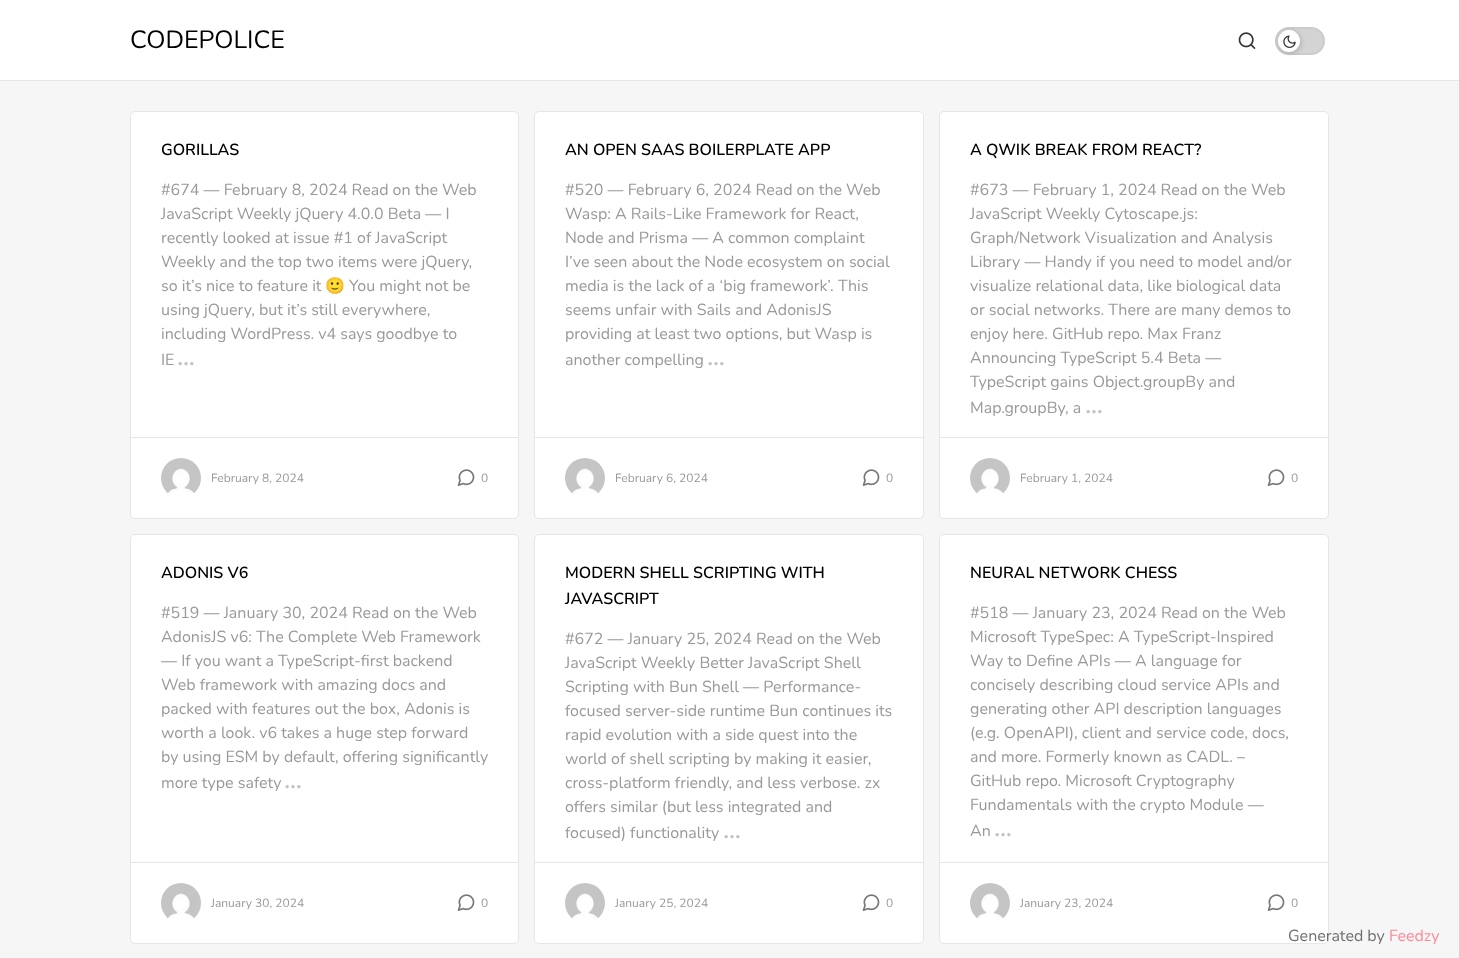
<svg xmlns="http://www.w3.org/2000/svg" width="1459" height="958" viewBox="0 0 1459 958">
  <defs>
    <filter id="blur1" x="-50%" y="-200%" width="200%" height="500%"><feGaussianBlur stdDeviation="2.5"/></filter>
  </defs>
  <rect width="100%" height="100%" fill="#f6f6f6"/>
  <rect x="0" y="0" width="1459" height="80" fill="#ffffff"/>
  <rect x="0" y="80" width="1459" height="1" fill="#e6e6e6"/>
  <text x="130" y="48" font-family="Nunito" font-size="25" fill="#000000">CODEPOLICE</text>
  <image x="1238" y="32" width="18" height="17" href="img1.png"/>
  <rect x="1276" y="28" width="48" height="26" rx="13" fill="#d4d4d4" stroke="#cccccc" stroke-width="2"/>
  <rect x="1279" y="31" width="22" height="22" rx="11" fill="#000000" fill-opacity="0.2" filter="url(#blur1)"/>
  <circle cx="1289" cy="41" r="11" fill="#ffffff"/>
  <image x="1283" y="35" width="13" height="13" href="img2.png"/>
  <rect x="130.5" y="111.5" width="388" height="407" rx="4.5" fill="#ffffff" stroke="#e6e6e6"/>
  <text x="161" y="155" font-family="Nunito" font-size="16" font-weight="600" fill="#000000">GORILLAS</text>
  <text x="161" y="195" font-family="Nunito" font-size="16" fill="#999999">#674 — February 8, 2024 Read on the Web</text>
  <text x="161" y="219" font-family="Nunito" font-size="16" fill="#999999">JavaScript Weekly jQuery 4.0.0 Beta — I</text>
  <text x="161" y="243" font-family="Nunito" font-size="16" fill="#999999">recently looked at issue #1 of JavaScript</text>
  <text x="161" y="267" font-family="Nunito" font-size="16" fill="#999999">Weekly and the top two items were jQuery,</text>
  <text x="161" y="291" font-family="Nunito" font-size="16" fill="#999999">so it’s nice to feature it</text>
  <text x="325" y="291" font-family="Noto Color Emoji" font-size="16" fill="#999999">🙂</text>
  <text x="349" y="291" font-family="Nunito" font-size="16" fill="#999999">You might not be</text>
  <text x="161" y="315" font-family="Nunito" font-size="16" fill="#999999">using jQuery, but it’s still everywhere,</text>
  <text x="161" y="339" font-family="Nunito" font-size="16" fill="#999999">including WordPress. v4 says goodbye to</text>
  <text x="161" y="365" font-family="Nunito" font-size="16" fill="#999999">IE</text>
  <image x="178" y="362" width="16" height="4" href="img3.png"/>
  <rect x="131" y="437" width="387" height="1" fill="#e6e6e6"/>
  <image x="161" y="458" width="40" height="36" href="img4.png"/>
  <text x="211" y="482" font-family="Nunito" font-size="12" fill="#999999">February 8, 2024</text>
  <image x="457" y="469" width="18" height="17" href="img5.png"/>
  <text x="481" y="482" font-family="Nunito" font-size="12" fill="#999999">0</text>
  <rect x="534.5" y="111.5" width="389" height="407" rx="4.5" fill="#ffffff" stroke="#e6e6e6"/>
  <text x="565" y="155" font-family="Nunito" font-size="16" font-weight="600" fill="#000000">AN OPEN SAAS BOILERPLATE APP</text>
  <text x="565" y="195" font-family="Nunito" font-size="16" fill="#999999">#520 — February 6, 2024 Read on the Web</text>
  <text x="565" y="219" font-family="Nunito" font-size="16" fill="#999999">Wasp: A Rails-Like Framework for React,</text>
  <text x="565" y="243" font-family="Nunito" font-size="16" fill="#999999">Node and Prisma — A common complaint</text>
  <text x="565" y="267" font-family="Nunito" font-size="16" fill="#999999">I’ve seen about the Node ecosystem on social</text>
  <text x="565" y="291" font-family="Nunito" font-size="16" fill="#999999">media is the lack of a ‘big framework’. This</text>
  <text x="565" y="315" font-family="Nunito" font-size="16" fill="#999999">seems unfair with Sails and AdonisJS</text>
  <text x="565" y="339" font-family="Nunito" font-size="16" fill="#999999">providing at least two options, but Wasp is</text>
  <text x="565" y="365" font-family="Nunito" font-size="16" fill="#999999">another compelling</text>
  <image x="708" y="362" width="16" height="4" href="img3.png"/>
  <rect x="535" y="437" width="388" height="1" fill="#e6e6e6"/>
  <image x="565" y="458" width="40" height="36" href="img4.png"/>
  <text x="615" y="482" font-family="Nunito" font-size="12" fill="#999999">February 6, 2024</text>
  <image x="862" y="469" width="18" height="17" href="img5.png"/>
  <text x="886" y="482" font-family="Nunito" font-size="12" fill="#999999">0</text>
  <rect x="939.5" y="111.5" width="389" height="407" rx="4.5" fill="#ffffff" stroke="#e6e6e6"/>
  <text x="970" y="155" font-family="Nunito" font-size="16" font-weight="600" fill="#000000">A QWIK BREAK FROM REACT?</text>
  <text x="970" y="195" font-family="Nunito" font-size="16" fill="#999999">#673 — February 1, 2024 Read on the Web</text>
  <text x="970" y="219" font-family="Nunito" font-size="16" fill="#999999">JavaScript Weekly Cytoscape.js:</text>
  <text x="970" y="243" font-family="Nunito" font-size="16" fill="#999999">Graph/Network Visualization and Analysis</text>
  <text x="970" y="267" font-family="Nunito" font-size="16" fill="#999999">Library — Handy if you need to model and/or</text>
  <text x="970" y="291" font-family="Nunito" font-size="16" fill="#999999">visualize relational data, like biological data</text>
  <text x="970" y="315" font-family="Nunito" font-size="16" fill="#999999">or social networks. There are many demos to</text>
  <text x="970" y="339" font-family="Nunito" font-size="16" fill="#999999">enjoy here. GitHub repo. Max Franz</text>
  <text x="970" y="363" font-family="Nunito" font-size="16" fill="#999999">Announcing TypeScript 5.4 Beta —</text>
  <text x="970" y="387" font-family="Nunito" font-size="16" fill="#999999">TypeScript gains Object.groupBy and</text>
  <text x="970" y="413" font-family="Nunito" font-size="16" fill="#999999">Map.groupBy, a</text>
  <image x="1086" y="410" width="16" height="4" href="img3.png"/>
  <rect x="940" y="437" width="388" height="1" fill="#e6e6e6"/>
  <image x="970" y="458" width="40" height="36" href="img4.png"/>
  <text x="1020" y="482" font-family="Nunito" font-size="12" fill="#999999">February 1, 2024</text>
  <image x="1267" y="469" width="18" height="17" href="img5.png"/>
  <text x="1291" y="482" font-family="Nunito" font-size="12" fill="#999999">0</text>
  <rect x="130.5" y="534.5" width="388" height="409" rx="4.5" fill="#ffffff" stroke="#e6e6e6"/>
  <text x="161" y="578" font-family="Nunito" font-size="16" font-weight="600" fill="#000000">ADONIS V6</text>
  <text x="161" y="618" font-family="Nunito" font-size="16" fill="#999999">#519 — January 30, 2024 Read on the Web</text>
  <text x="161" y="642" font-family="Nunito" font-size="16" fill="#999999">AdonisJS v6: The Complete Web Framework</text>
  <text x="161" y="666" font-family="Nunito" font-size="16" fill="#999999">— If you want a TypeScript-first backend</text>
  <text x="161" y="690" font-family="Nunito" font-size="16" fill="#999999">Web framework with amazing docs and</text>
  <text x="161" y="714" font-family="Nunito" font-size="16" fill="#999999">packed with features out the box, Adonis is</text>
  <text x="161" y="738" font-family="Nunito" font-size="16" fill="#999999">worth a look. v6 takes a huge step forward</text>
  <text x="161" y="762" font-family="Nunito" font-size="16" fill="#999999">by using ESM by default, offering significantly</text>
  <text x="161" y="788" font-family="Nunito" font-size="16" fill="#999999">more type safety</text>
  <image x="285" y="785" width="16" height="4" href="img3.png"/>
  <rect x="131" y="862" width="387" height="1" fill="#e6e6e6"/>
  <image x="161" y="883" width="40" height="36" href="img4.png"/>
  <text x="211" y="907" font-family="Nunito" font-size="12" fill="#999999">January 30, 2024</text>
  <image x="457" y="894" width="18" height="17" href="img5.png"/>
  <text x="481" y="907" font-family="Nunito" font-size="12" fill="#999999">0</text>
  <rect x="534.5" y="534.5" width="389" height="409" rx="4.5" fill="#ffffff" stroke="#e6e6e6"/>
  <text x="565" y="578" font-family="Nunito" font-size="16" font-weight="600" fill="#000000">MODERN SHELL SCRIPTING WITH</text>
  <text x="565" y="604" font-family="Nunito" font-size="16" font-weight="600" fill="#000000">JAVASCRIPT</text>
  <text x="565" y="644" font-family="Nunito" font-size="16" fill="#999999">#672 — January 25, 2024 Read on the Web</text>
  <text x="565" y="668" font-family="Nunito" font-size="16" fill="#999999">JavaScript Weekly Better JavaScript Shell</text>
  <text x="565" y="692" font-family="Nunito" font-size="16" fill="#999999">Scripting with Bun Shell — Performance-</text>
  <text x="565" y="716" font-family="Nunito" font-size="16" fill="#999999">focused server-side runtime Bun continues its</text>
  <text x="565" y="740" font-family="Nunito" font-size="16" fill="#999999">rapid evolution with a side quest into the</text>
  <text x="565" y="764" font-family="Nunito" font-size="16" fill="#999999">world of shell scripting by making it easier,</text>
  <text x="565" y="788" font-family="Nunito" font-size="16" fill="#999999">cross-platform friendly, and less verbose. zx</text>
  <text x="565" y="812" font-family="Nunito" font-size="16" fill="#999999">offers similar (but less integrated and</text>
  <text x="565" y="838" font-family="Nunito" font-size="16" fill="#999999">focused) functionality</text>
  <image x="724" y="835" width="16" height="4" href="img3.png"/>
  <rect x="535" y="862" width="388" height="1" fill="#e6e6e6"/>
  <image x="565" y="883" width="40" height="36" href="img4.png"/>
  <text x="615" y="907" font-family="Nunito" font-size="12" fill="#999999">January 25, 2024</text>
  <image x="862" y="894" width="18" height="17" href="img5.png"/>
  <text x="886" y="907" font-family="Nunito" font-size="12" fill="#999999">0</text>
  <rect x="939.5" y="534.5" width="389" height="409" rx="4.5" fill="#ffffff" stroke="#e6e6e6"/>
  <text x="970" y="578" font-family="Nunito" font-size="16" font-weight="600" fill="#000000">NEURAL NETWORK CHESS</text>
  <text x="970" y="618" font-family="Nunito" font-size="16" fill="#999999">#518 — January 23, 2024 Read on the Web</text>
  <text x="970" y="642" font-family="Nunito" font-size="16" fill="#999999">Microsoft TypeSpec: A TypeScript-Inspired</text>
  <text x="970" y="666" font-family="Nunito" font-size="16" fill="#999999">Way to Define APIs — A language for</text>
  <text x="970" y="690" font-family="Nunito" font-size="16" fill="#999999">concisely describing cloud service APIs and</text>
  <text x="970" y="714" font-family="Nunito" font-size="16" fill="#999999">generating other API description languages</text>
  <text x="970" y="738" font-family="Nunito" font-size="16" fill="#999999">(e.g. OpenAPI), client and service code, docs,</text>
  <text x="970" y="762" font-family="Nunito" font-size="16" fill="#999999">and more. Formerly known as CADL. –</text>
  <text x="970" y="786" font-family="Nunito" font-size="16" fill="#999999">GitHub repo. Microsoft Cryptography</text>
  <text x="970" y="810" font-family="Nunito" font-size="16" fill="#999999">Fundamentals with the crypto Module —</text>
  <text x="970" y="836" font-family="Nunito" font-size="16" fill="#999999">An</text>
  <image x="995" y="833" width="16" height="4" href="img3.png"/>
  <rect x="940" y="862" width="388" height="1" fill="#e6e6e6"/>
  <image x="970" y="883" width="40" height="36" href="img4.png"/>
  <text x="1020" y="907" font-family="Nunito" font-size="12" fill="#999999">January 23, 2024</text>
  <image x="1267" y="894" width="18" height="17" href="img5.png"/>
  <text x="1291" y="907" font-family="Nunito" font-size="12" fill="#999999">0</text>
  <text x="1288" y="941" font-family="Nunito" font-size="16" fill="#6f6f6f">Generated by</text>
  <text x="1389" y="941" font-family="Nunito" font-size="16" fill="#fc8997">Feedzy</text>
</svg>
